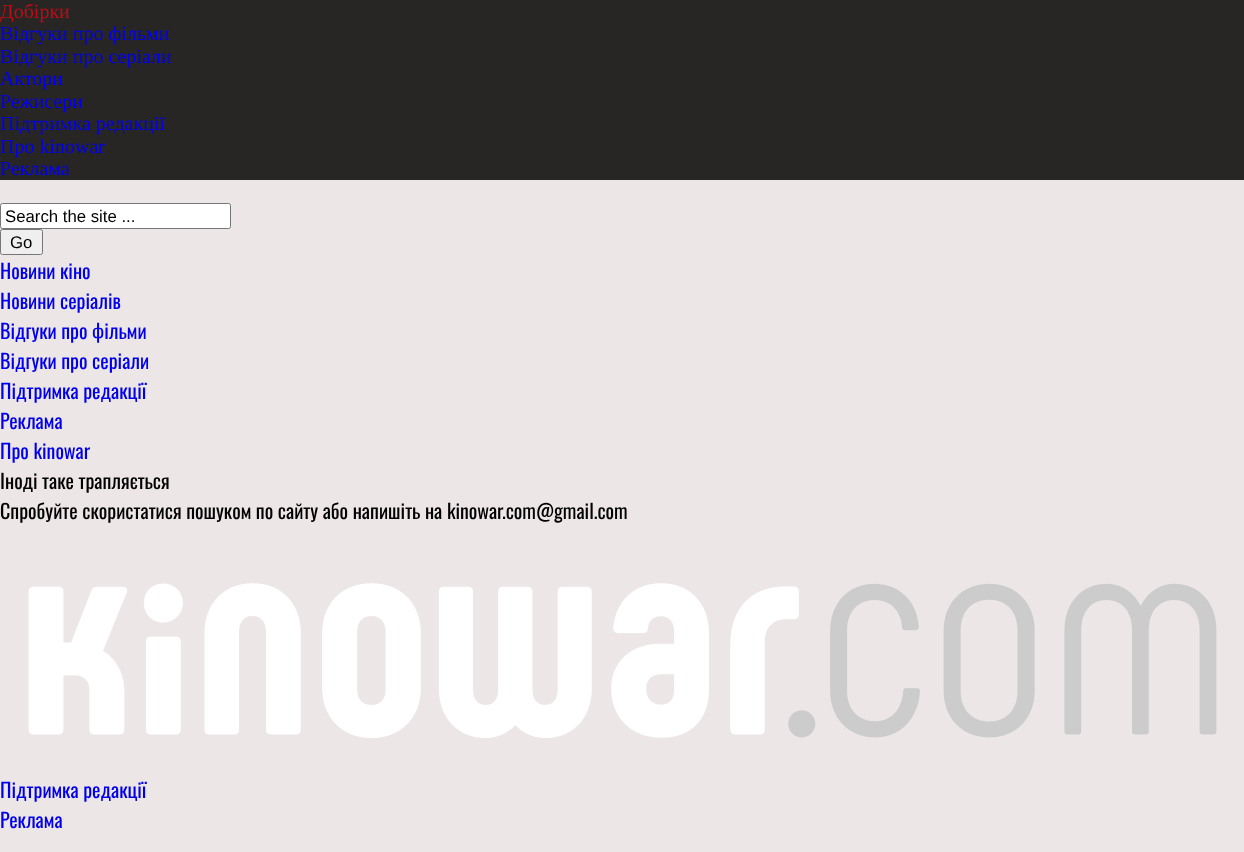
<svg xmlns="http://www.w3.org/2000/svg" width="1244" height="852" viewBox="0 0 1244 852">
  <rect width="100%" height="100%" fill="#ede6e7"/>
  <rect x="0" y="0" width="1244" height="180" fill="#272625"/>
  <text x="0" y="18" font-family="Liberation Serif" font-size="20" fill="#ba0d16">Добірки</text>
  <text x="0" y="40" font-family="Liberation Serif" font-size="20" fill="#0000ee">Відгуки про фільми</text>
  <text x="0" y="63" font-family="Liberation Serif" font-size="20" fill="#0000ee">Відгуки про серіали</text>
  <text x="0" y="85" font-family="Liberation Serif" font-size="20" fill="#0000ee">Актори</text>
  <text x="0" y="108" font-family="Liberation Serif" font-size="20" fill="#0000ee">Режисери</text>
  <text x="0" y="130" font-family="Liberation Serif" font-size="20" fill="#0000ee">Підтримка редакції</text>
  <text x="0" y="153" font-family="Liberation Serif" font-size="20" fill="#0000ee">Про kinowar</text>
  <text x="0" y="175" font-family="Liberation Serif" font-size="20" fill="#0000ee">Реклама</text>
  <rect x="0.5" y="203.5" width="230" height="25" rx="2" fill="#ffffff" stroke="#767676"/>
  <text x="5" y="222" font-family="Liberation Sans" font-size="16.75" fill="#000000">Search the site ...</text>
  <rect x="0.5" y="229.5" width="42" height="25" rx="2" fill="#efefef" stroke="#767676"/>
  <text x="10" y="248" font-family="Liberation Sans" font-size="16.75" fill="#000000">Go</text>
  <text x="0" y="279" font-family="Oswald" font-size="20" fill="#0000ee">Новини кіно</text>
  <text x="0" y="309" font-family="Oswald" font-size="20" fill="#0000ee">Новини серіалів</text>
  <text x="0" y="339" font-family="Oswald" font-size="20" fill="#0000ee">Відгуки про фільми</text>
  <text x="0" y="369" font-family="Oswald" font-size="20" fill="#0000ee">Відгуки про серіали</text>
  <text x="0" y="399" font-family="Oswald" font-size="20" fill="#0000ee">Підтримка редакції</text>
  <text x="0" y="429" font-family="Oswald" font-size="20" fill="#0000ee">Реклама</text>
  <text x="0" y="459" font-family="Oswald" font-size="20" fill="#0000ee">Про kinowar</text>
  <text x="0" y="489" font-family="Oswald" font-size="20" fill="#000000">Іноді таке трапляється</text>
  <text x="0" y="519" font-family="Oswald" font-size="20" fill="#000000">Спробуйте скористатися пошуком по сайту або напишіть на kinowar.com@gmail.com</text>
  <image x="28" y="583" width="1189" height="155" href="img1.png"/>
  <text x="0" y="798" font-family="Oswald" font-size="20" fill="#0000ee">Підтримка редакції</text>
  <text x="0" y="828" font-family="Oswald" font-size="20" fill="#0000ee">Реклама</text>
</svg>
